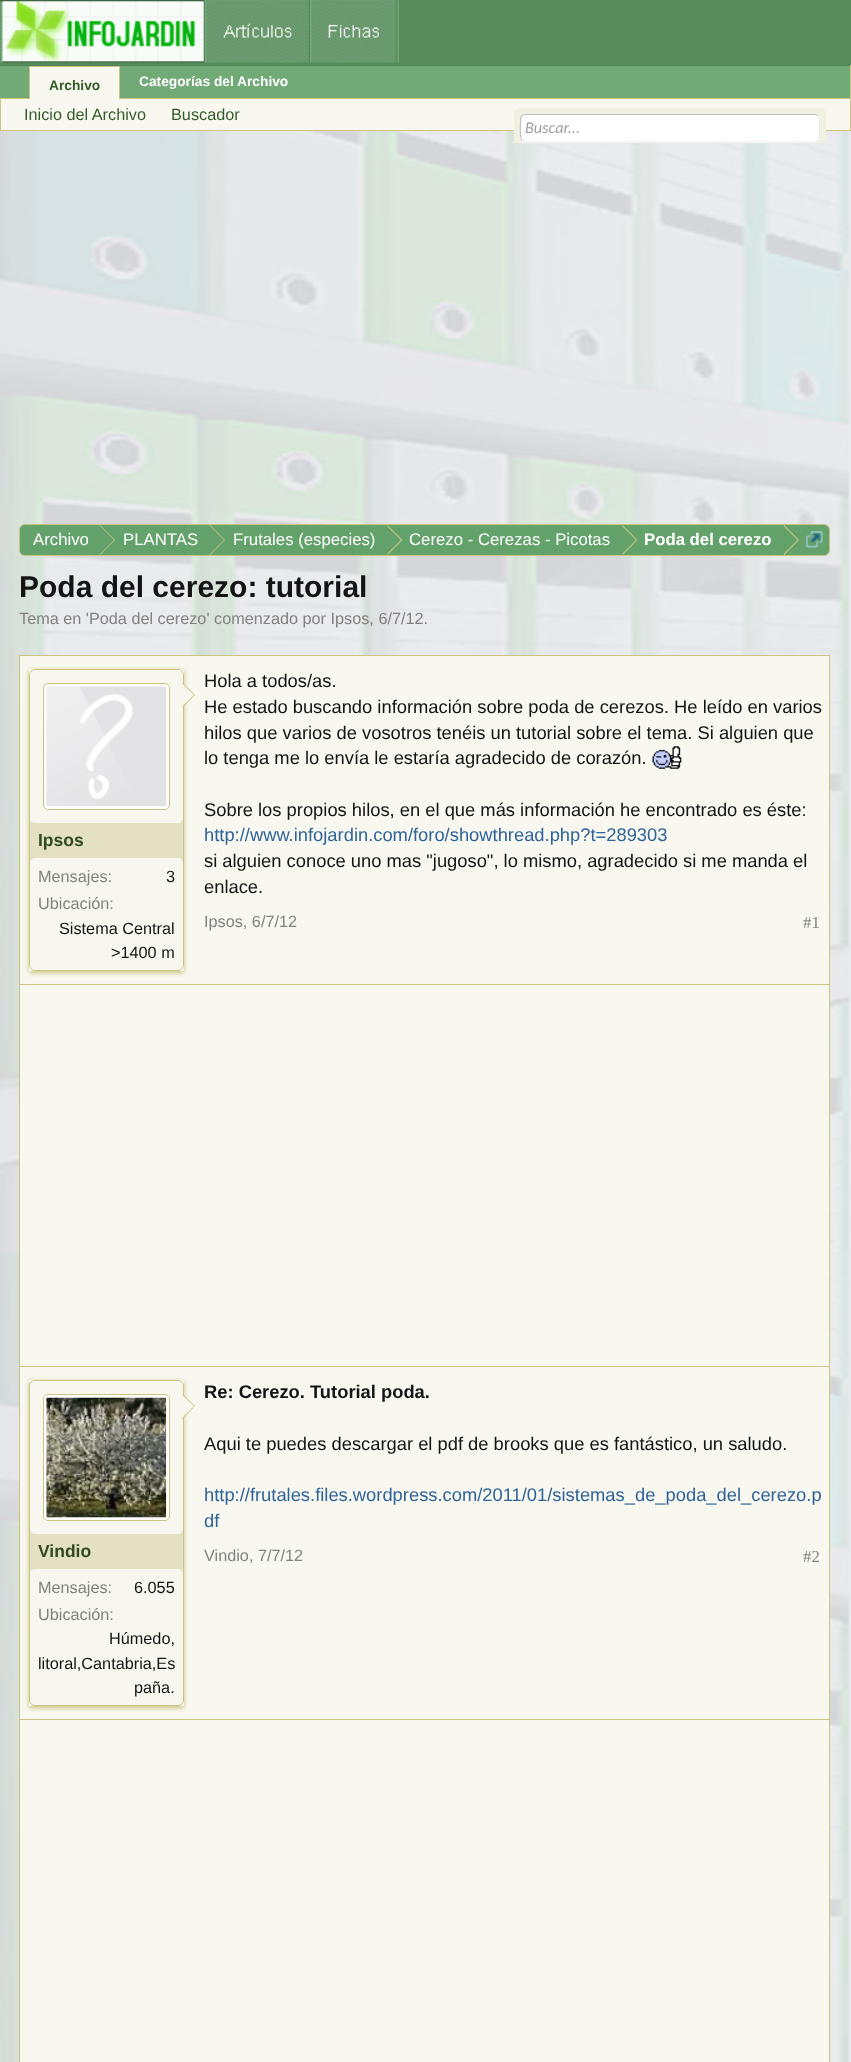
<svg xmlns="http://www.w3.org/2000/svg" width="851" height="2062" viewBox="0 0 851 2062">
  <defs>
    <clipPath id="clip1"><rect x="20" y="525" width="809" height="30" rx="5"/></clipPath>
    <clipPath id="clip2"><path d="M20 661H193V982H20ZM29 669H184V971H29Z" clip-rule="evenodd"/></clipPath>
    <filter id="blur1" x="-50%" y="-200%" width="200%" height="500%"><feGaussianBlur stdDeviation="2.5"/></filter>
    <clipPath id="clip3"><path d="M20 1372H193V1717H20ZM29 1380H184V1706H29Z" clip-rule="evenodd"/></clipPath>
  </defs>
  <rect width="100%" height="100%" fill="#e9eaed"/>
  <rect x="0" y="0" width="851" height="65" fill="#558c5a"/>
  <image x="0" y="0" width="399" height="63" href="img1.png"/>
  <rect x="0" y="66" width="850" height="32" fill="#71a977"/>
  <rect x="0" y="65" width="851" height="1" fill="#518456"/>
  <rect x="850" y="65" width="1" height="66" fill="#cbc483"/>
  <rect x="0" y="98" width="851" height="1" fill="#cbc483"/>
  <text x="139" y="86" font-family="Liberation Sans" font-size="13.75" font-weight="bold" fill="#ffffff">Categorías del Archivo</text>
  <path d="M31.5 66H117.5C119 66 120 67 120 68.5V101H29V68.5C29 67 30 66 31.5 66Z" fill="#f8f8f1"/>
  <rect x="30" y="66" width="89" height="1" fill="#cbc483"/>
  <rect x="119" y="68" width="1" height="33" fill="#cbc483"/>
  <rect x="29" y="68" width="1" height="33" fill="#cbc483"/>
  <text x="49" y="90" font-family="Liberation Sans" font-size="13.75" font-weight="bold" fill="#345c2b">Archivo</text>
  <rect x="1" y="99" width="849" height="31" fill="#f8f8f1"/>
  <rect x="0" y="130" width="851" height="1" fill="#cbc483"/>
  <rect x="0" y="99" width="1" height="32" fill="#cbc483"/>
  <text x="24" y="120" font-family="Liberation Sans" font-size="16.25" fill="#345c2b">Inicio del Archivo</text>
  <text x="171" y="120" font-family="Liberation Sans" font-size="16.25" fill="#345c2b">Buscador</text>
  <image x="0" y="131" width="849" height="1931" href="img2.png"/>
  <rect x="514" y="108" width="312" height="35" rx="6" fill="#f2f0e1"/>
  <rect x="514" y="138" width="312" height="5" fill="#f2f0e1"/>
  <rect x="520" y="114" width="300" height="29" rx="5" fill="#ffffff"/>
  <path d="M818 115.5C820.5 118.5 819.5 130.5 819.5 134.5C819.5 137.5 819.5 142 815 142H525L522 140.5" fill="none" stroke="#e9e9e9" stroke-width="1.2"/>
  <path d="M522 140.5C519.5 138 520.5 125.5 520.5 122C520.5 118.5 520.5 114.5 525 114.5H815L818 115.5" fill="none" stroke="#c0c0c0" stroke-width="1.2"/>
  <text x="525" y="133" font-family="Carlito" font-size="16.25" font-style="italic" fill="#a0a0a0">Buscar...</text>
  <rect x="19.5" y="524.5" width="810" height="31" rx="5.5" fill="#64a26b" stroke="#cbc483"/>
  <g clip-path="url(#clip1)">
    <path d="M25 525H100V556H25C22 556 20 554 20 551V530C20 527 22 525 25 525Z" fill="#64a26b"/>
  </g>
  <text x="33" y="545" font-family="Liberation Sans" font-size="16.75" fill="#ffffff">Archivo</text>
  <path d="M100 555V525L115 540Z" fill="#cbc483"/>
  <path d="M99 555V525L114 540Z" fill="#64a26b"/>
  <text x="123" y="545" font-family="Liberation Sans" font-size="16.75" fill="#ffffff">PLANTAS</text>
  <path d="M210 555V525L225 540Z" fill="#cbc483"/>
  <path d="M209 555V525L224 540Z" fill="#64a26b"/>
  <text x="233" y="545" font-family="Liberation Sans" font-size="16.75" fill="#ffffff">Frutales (especies)</text>
  <path d="M387.5 555V525L402.5 540Z" fill="#cbc483"/>
  <path d="M386 555V525L401 540Z" fill="#64a26b"/>
  <text x="409" y="545" font-family="Liberation Sans" font-size="16.75" fill="#ffffff">Cerezo - Cerezas - Picotas</text>
  <path d="M622.5 555V525L637.5 540Z" fill="#cbc483"/>
  <path d="M621 555V525L636 540Z" fill="#64a26b"/>
  <text x="644" y="545" font-family="Liberation Sans" font-size="16.75" font-weight="bold" fill="#ffffff">Poda del cerezo</text>
  <path d="M784 555V525L799 540Z" fill="#cbc483"/>
  <path d="M782.5 555V525L797.5 540Z" fill="#64a26b"/>
  <image x="806" y="531" width="17" height="17" href="img3.png"/>
  <text x="19" y="597" font-family="Liberation Sans" font-size="30" font-weight="bold" fill="#141414">Poda del cerezo: tutorial</text>
  <text x="19" y="624" font-family="Liberation Sans" font-size="16.25" fill="#848080">Tema en 'Poda del cerezo' comenzado por Ipsos, 6/7/12.</text>
  <rect x="20" y="656" width="809" height="328" fill="#f8f8f1"/>
  <rect x="19" y="655" width="811" height="1" fill="#cbc483"/>
  <rect x="829" y="655" width="1" height="329" fill="#cbc483"/>
  <rect x="19" y="655" width="1" height="329" fill="#cbc483"/>
  <g clip-path="url(#clip2)">
    <rect x="29" y="670" width="155" height="303" fill="#cbc483" filter="url(#blur1)"/>
  </g>
  <rect x="29.5" y="669.5" width="154" height="301" rx="5.5" fill="#e4e1c2" stroke="#cbc483"/>
  <rect x="30" y="670" width="153" height="153" rx="5" fill="#f8f7ef"/>
  <rect x="43.5" y="683.5" width="126" height="126" rx="4.5" fill="#fffcfe" stroke="#cbc483"/>
  <image x="46" y="686" width="120" height="120" href="img4.png"/>
  <path d="M182.5 707.5V682.5L195 695Z" fill="#cbc483"/>
  <path d="M181 707.5V682.5L194 695Z" fill="#f8f7ef"/>
  <text x="38" y="846" font-family="Liberation Sans" font-size="17.5" font-weight="bold" fill="#2f4a24">Ipsos</text>
  <rect x="30" y="858" width="153" height="112" rx="5" fill="#f8f7ef"/>
  <text x="38" y="882" font-family="Liberation Sans" font-size="16.25" fill="#848080">Mensajes:</text>
  <text x="166" y="882" font-family="Liberation Sans" font-size="16.25" fill="#141414">3</text>
  <text x="38" y="909" font-family="Liberation Sans" font-size="16.25" fill="#848080">Ubicación:</text>
  <text x="59" y="934" font-family="Liberation Sans" font-size="16.25" fill="#141414">Sistema Central</text>
  <text x="111" y="958" font-family="Liberation Sans" font-size="16.25" fill="#141414">&gt;1400 m</text>
  <text x="204" y="687" font-family="Liberation Sans" font-size="18.35" fill="#141414">Hola a todos/as.</text>
  <text x="204" y="713" font-family="Liberation Sans" font-size="18.35" fill="#141414">He estado buscando información sobre poda de cerezos. He leído en varios</text>
  <text x="204" y="739" font-family="Liberation Sans" font-size="18.35" fill="#141414">hilos que varios de vosotros tenéis un tutorial sobre el tema. Si alguien que</text>
  <text x="204" y="764" font-family="Liberation Sans" font-size="18.35" fill="#141414">lo tenga me lo envía le estaría agradecido de corazón.</text>
  <image x="652" y="746" width="30" height="23" href="img5.png"/>
  <text x="204" y="816" font-family="Liberation Sans" font-size="18.35" fill="#141414">Sobre los propios hilos, en el que más información he encontrado es éste:</text>
  <text x="204" y="841" font-family="Liberation Sans" font-size="18.35" fill="#306498">http://www.infojardin.com/foro/showthread.php?t=289303</text>
  <text x="204" y="867" font-family="Liberation Sans" font-size="18.35" fill="#141414">si alguien conoce uno mas "jugoso", lo mismo, agradecido si me manda el</text>
  <text x="204" y="893" font-family="Liberation Sans" font-size="18.35" fill="#141414">enlace.</text>
  <text x="204" y="927" font-family="Liberation Sans" font-size="16.25" fill="#848080">Ipsos, 6/7/12</text>
  <text x="803" y="928" font-family="Liberation Serif" font-size="16.75" fill="#848080">#1</text>
  <rect x="20" y="985" width="809" height="381" fill="#f8f8f1"/>
  <rect x="19" y="984" width="811" height="1" fill="#cbc483"/>
  <rect x="829" y="984" width="1" height="382" fill="#cbc483"/>
  <rect x="19" y="984" width="1" height="382" fill="#cbc483"/>
  <rect x="20" y="1367" width="809" height="352" fill="#f8f8f1"/>
  <rect x="19" y="1366" width="811" height="1" fill="#cbc483"/>
  <rect x="829" y="1366" width="1" height="353" fill="#cbc483"/>
  <rect x="19" y="1366" width="1" height="353" fill="#cbc483"/>
  <text x="204" y="1398" font-family="Liberation Sans" font-size="18.35" font-weight="bold" fill="#141414">Re: Cerezo. Tutorial poda.</text>
  <text x="204" y="1450" font-family="Liberation Sans" font-size="18.35" fill="#141414">Aqui te puedes descargar el pdf de brooks que es fantástico, un saludo.</text>
  <text x="204" y="1501" font-family="Liberation Sans" font-size="18.35" fill="#306498">http://frutales.files.wordpress.com/2011/01/sistemas_de_poda_del_cerezo.p</text>
  <text x="204" y="1527" font-family="Liberation Sans" font-size="18.35" fill="#306498">df</text>
  <text x="204" y="1561" font-family="Liberation Sans" font-size="16.25" fill="#848080">Vindio, 7/7/12</text>
  <text x="803" y="1562" font-family="Liberation Serif" font-size="16.75" fill="#848080">#2</text>
  <g clip-path="url(#clip3)">
    <rect x="29" y="1381" width="155" height="327" fill="#cbc483" filter="url(#blur1)"/>
  </g>
  <rect x="29.5" y="1380.5" width="154" height="325" rx="5.5" fill="#e4e1c2" stroke="#cbc483"/>
  <rect x="30" y="1381" width="153" height="153" rx="5" fill="#f8f7ef"/>
  <rect x="43.5" y="1394.5" width="126" height="126" rx="4.5" fill="#fffcfe" stroke="#cbc483"/>
  <image x="46" y="1397" width="121" height="121" href="img6.png"/>
  <path d="M182.5 1419V1394L195 1406Z" fill="#cbc483"/>
  <path d="M181 1419V1394L194 1406Z" fill="#f8f7ef"/>
  <text x="38" y="1557" font-family="Liberation Sans" font-size="17.5" font-weight="bold" fill="#2f4a24">Vindio</text>
  <rect x="30" y="1569" width="153" height="136" rx="5" fill="#f8f7ef"/>
  <text x="38" y="1593" font-family="Liberation Sans" font-size="16.25" fill="#848080">Mensajes:</text>
  <text x="134" y="1593" font-family="Liberation Sans" font-size="16.25" fill="#141414">6.055</text>
  <text x="38" y="1620" font-family="Liberation Sans" font-size="16.25" fill="#848080">Ubicación:</text>
  <text x="109" y="1644" font-family="Liberation Sans" font-size="16.25" fill="#141414">Húmedo,</text>
  <text x="38" y="1669" font-family="Liberation Sans" font-size="16.25" fill="#141414">litoral,Cantabria,Es</text>
  <text x="134" y="1693" font-family="Liberation Sans" font-size="16.25" fill="#141414">paña.</text>
  <rect x="20" y="1720" width="809" height="342" fill="#f8f8f1"/>
  <rect x="19" y="1719" width="811" height="1" fill="#cbc483"/>
  <rect x="829" y="1719" width="1" height="343" fill="#cbc483"/>
  <rect x="19" y="1719" width="1" height="343" fill="#cbc483"/>
</svg>
